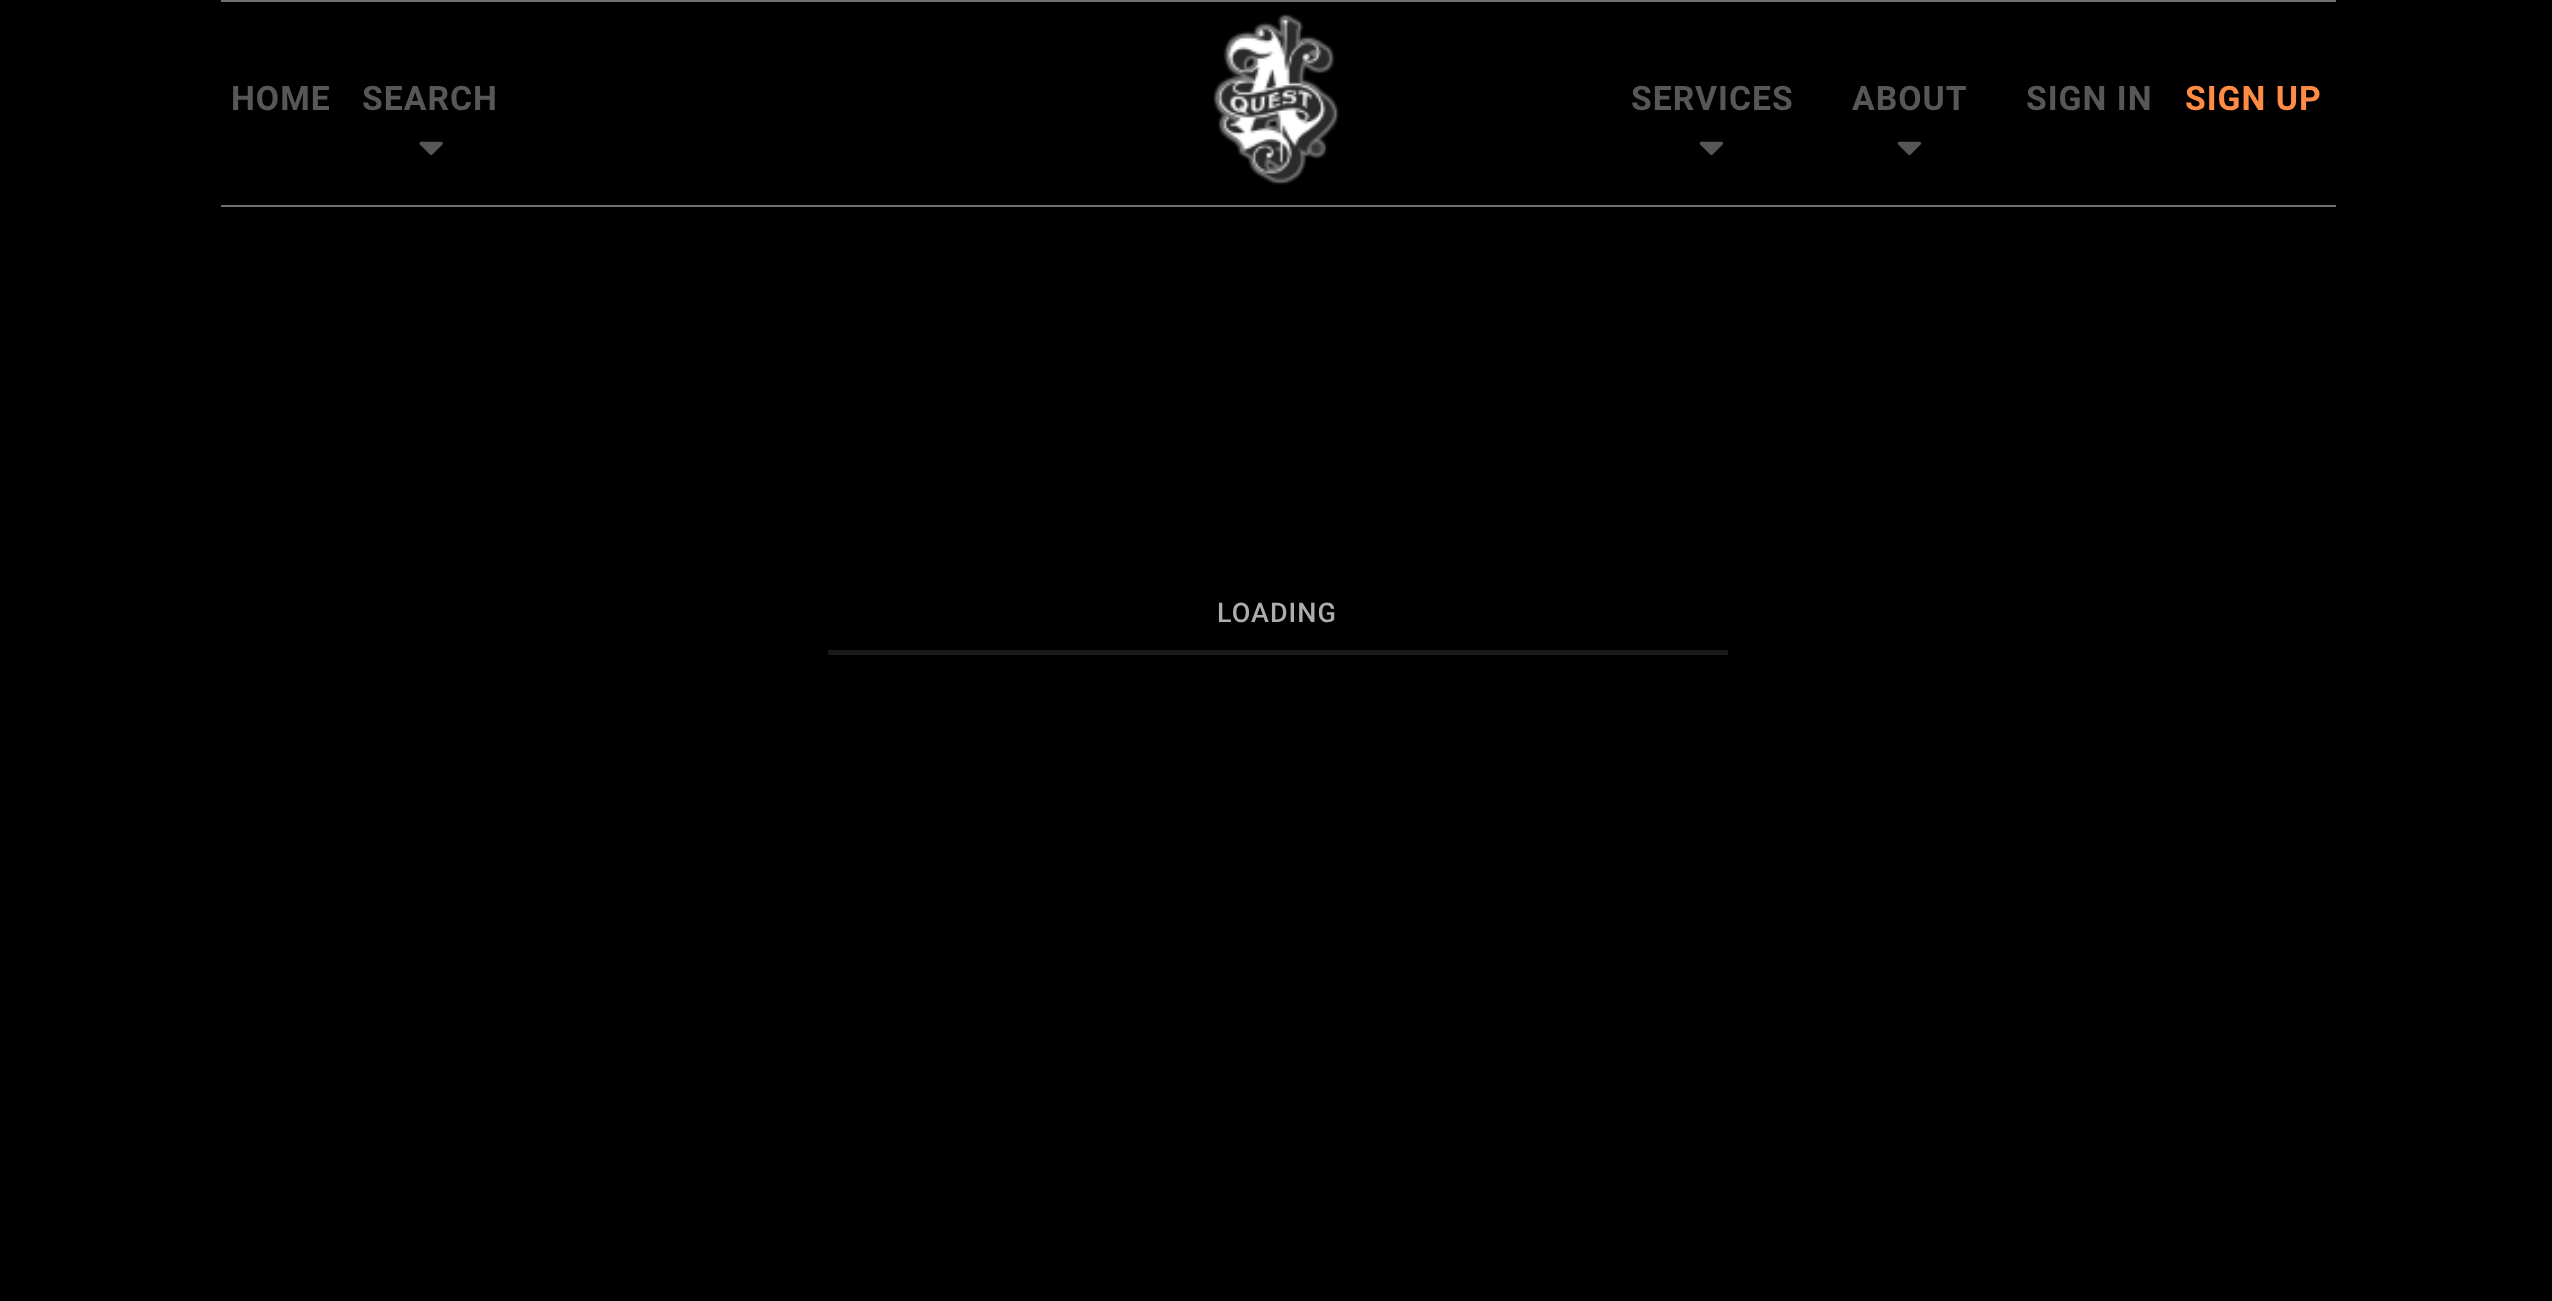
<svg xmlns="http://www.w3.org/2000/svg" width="2552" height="1301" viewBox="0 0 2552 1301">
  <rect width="100%" height="100%" fill="#000000"/>
  <rect x="221" y="0" width="2115" height="2" fill="#707070"/>
  <rect x="221" y="205" width="2115" height="2" fill="#707070"/>
  <text x="231" y="110" font-family="Roboto" font-size="33.75" font-weight="bold" letter-spacing="1" fill="#575757">HOME</text>
  <text x="362" y="110" font-family="Roboto" font-size="33.75" font-weight="bold" letter-spacing="1" fill="#575757">SEARCH</text>
  <image x="419" y="141" width="24" height="15" href="img1.png"/>
  <image x="1213" y="13" width="126" height="172" href="img2.png"/>
  <text x="1631" y="110" font-family="Roboto" font-size="33.75" font-weight="bold" letter-spacing="1" fill="#575757">SERVICES</text>
  <image x="1699" y="141" width="25" height="15" href="img3.png"/>
  <text x="1852" y="110" font-family="Roboto" font-size="33.75" font-weight="bold" letter-spacing="1" fill="#575757">ABOUT</text>
  <image x="1897" y="141" width="25" height="15" href="img3.png"/>
  <text x="2026" y="110" font-family="Roboto" font-size="33.75" font-weight="bold" letter-spacing="1" fill="#575757">SIGN IN</text>
  <text x="2185" y="110" font-family="Roboto" font-size="33.75" font-weight="bold" letter-spacing="1" fill="#ff8b45">SIGN UP</text>
  <text x="1217" y="622" font-family="Roboto" font-size="27" font-weight="500" letter-spacing="1" fill="#adadad">LOADING</text>
  <rect x="828" y="650" width="900" height="5" fill="#191919"/>
</svg>
